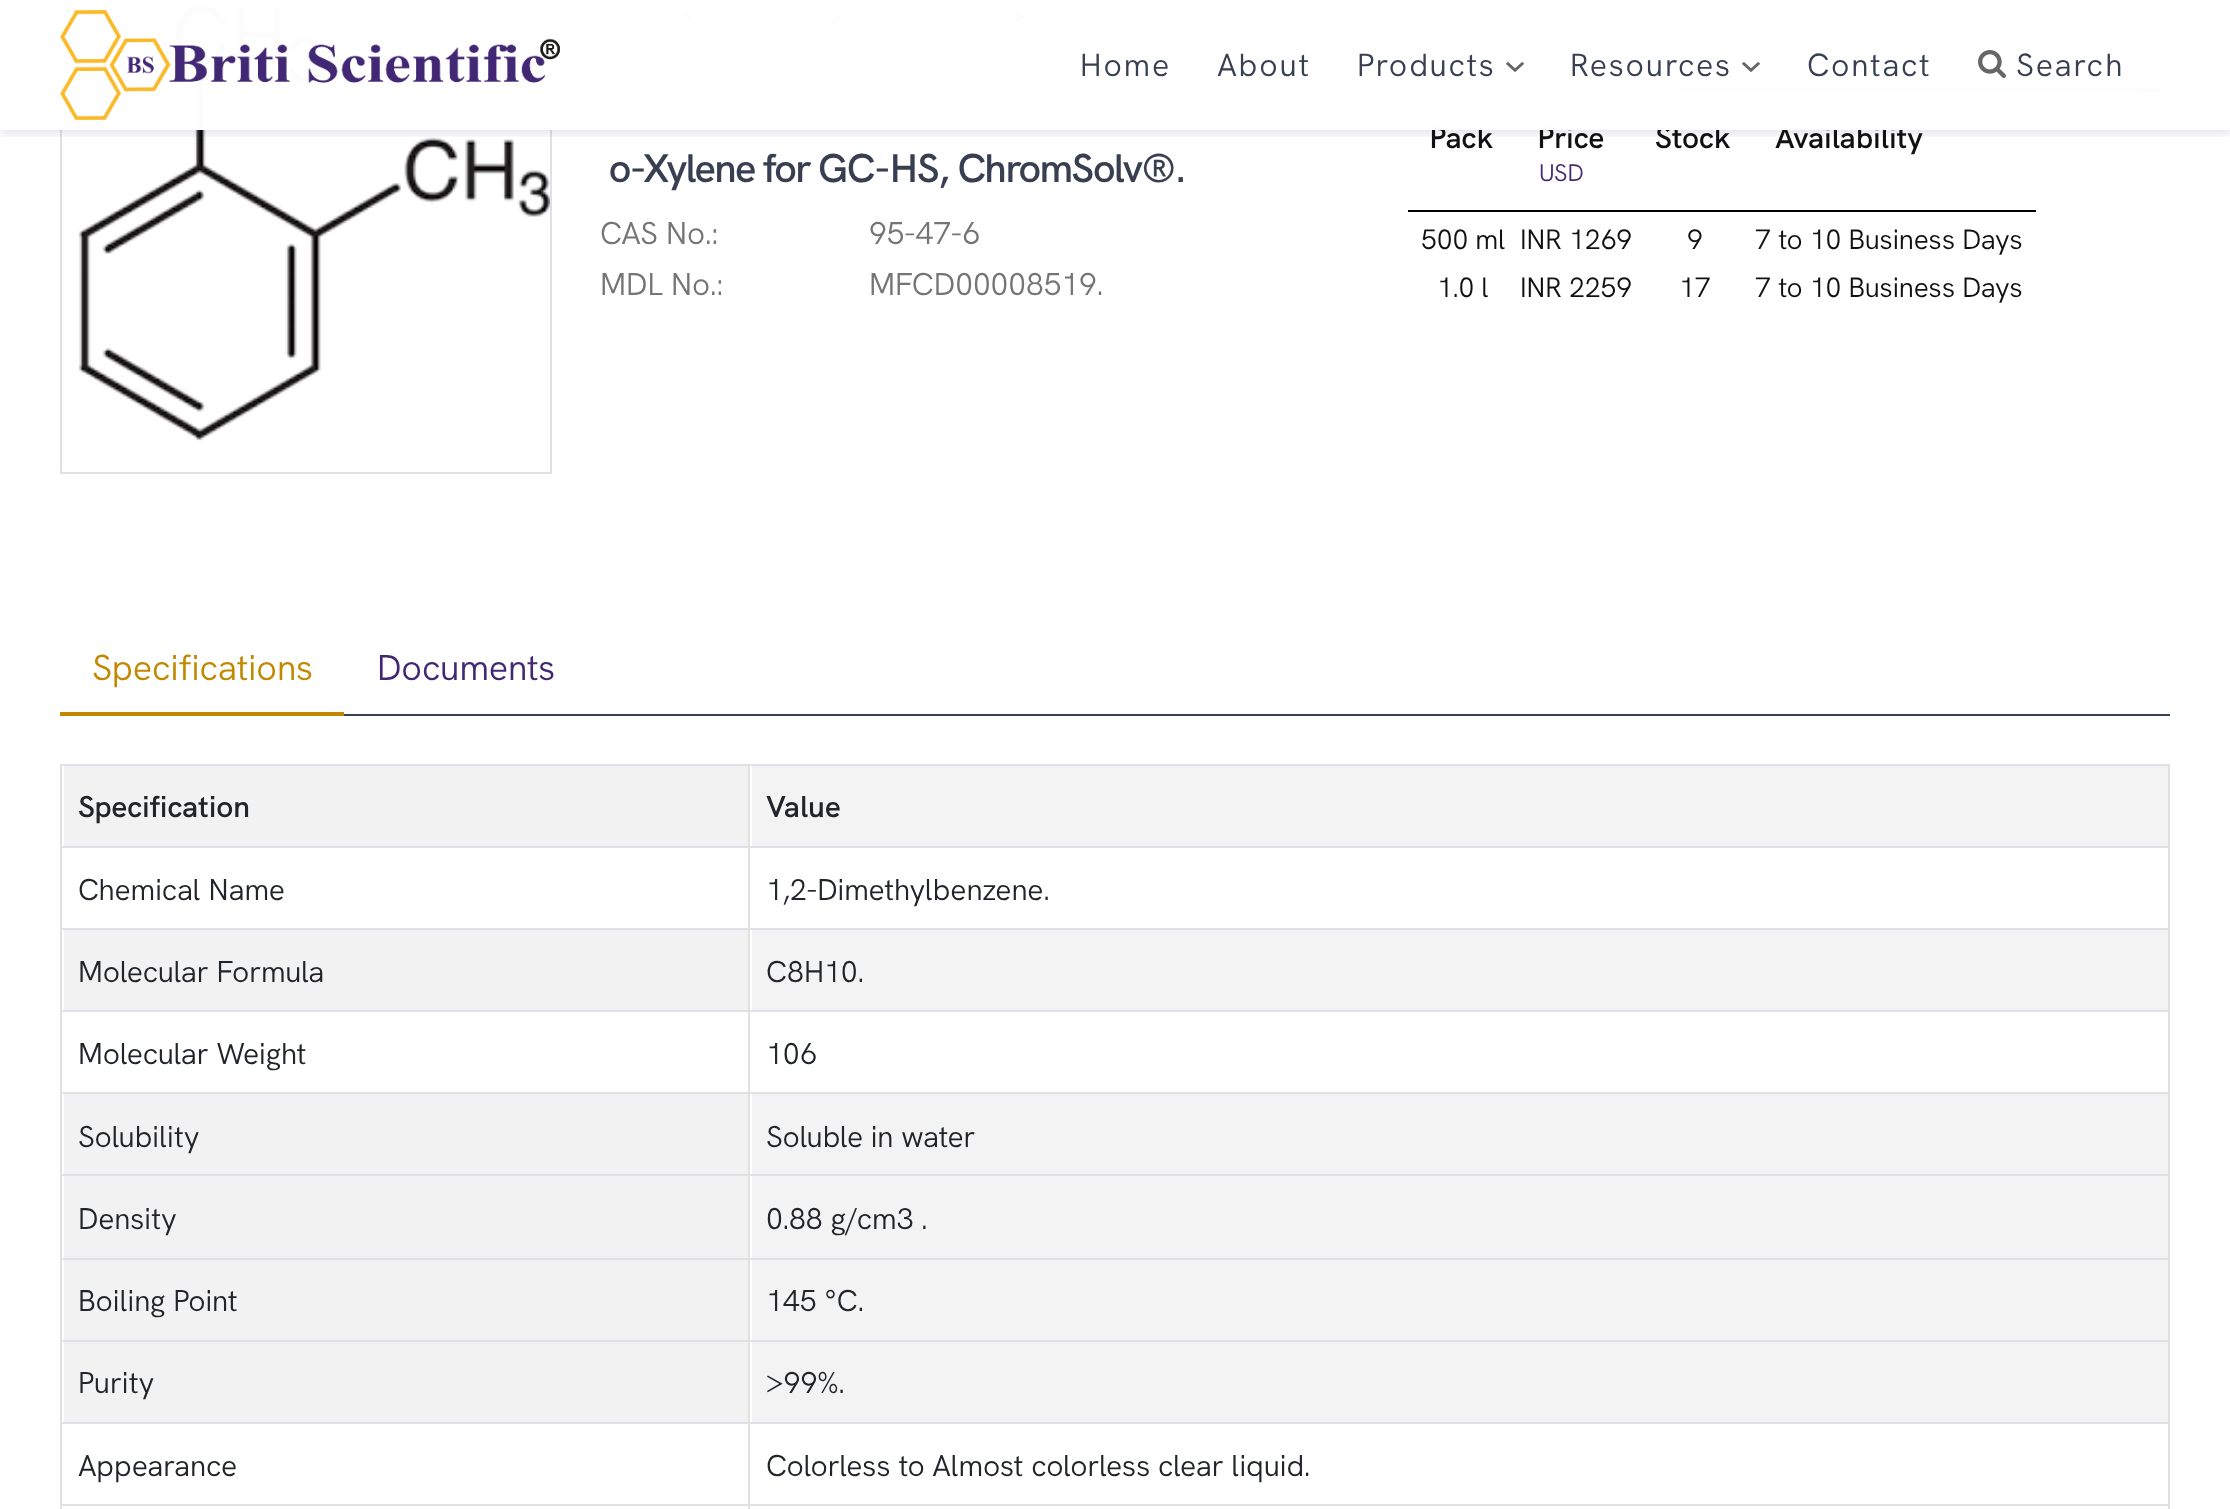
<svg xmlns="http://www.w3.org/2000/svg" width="2230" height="1509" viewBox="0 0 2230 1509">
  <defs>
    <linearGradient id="g1" gradientUnits="userSpaceOnUse" x1="1398" y1="90" x2="2160" y2="90"><stop offset="0" stop-color="#efa705"/><stop offset="0.98" stop-color="#3f3f3f"/></linearGradient>
    <clipPath id="clip1"><rect x="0" y="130" width="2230" height="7"/></clipPath>
    <filter id="blur1" x="-50%" y="-200%" width="200%" height="500%"><feGaussianBlur stdDeviation="4"/></filter>
  </defs>
  <rect width="100%" height="100%" fill="#ffffff"/>
  <rect x="61" y="-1" width="490" height="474" fill="none" stroke="#dee2e6" stroke-width="2"/>
  <image x="78" y="3" width="472" height="438" href="img4.png"/>
  <image x="683" y="12" width="9" height="13" href="img5.png"/>
  <image x="831" y="12" width="9" height="12" href="img6.png"/>
  <image x="1013" y="12" width="9" height="13" href="img5.png"/>
  <rect x="1408" y="88" width="752" height="4" fill="url(#g1)"/>
  <g clip-path="url(#clip1)">
    <rect x="0" y="4" width="2230" height="130" fill="#0c002e" fill-opacity="0.1" filter="url(#blur1)"/>
  </g>
  <text x="1429" y="148" font-family="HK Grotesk" font-size="30" font-weight="600" letter-spacing="-0.05" fill="#111111">Pack</text>
  <text x="1537" y="148" font-family="HK Grotesk" font-size="30" font-weight="600" letter-spacing="-0.05" fill="#111111">Price</text>
  <text x="1655" y="148" font-family="HK Grotesk" font-size="30" font-weight="600" letter-spacing="-0.05" fill="#111111">Stock</text>
  <text x="1775" y="148" font-family="HK Grotesk" font-size="30" font-weight="600" letter-spacing="-0.05" fill="#111111">Availability</text>
  <rect x="60" y="0" width="2100" height="130" fill="#ffffff" fill-opacity="0.99"/>
  <image x="60" y="10" width="500" height="110" href="img1.png"/>
  <text x="1080" y="76" font-family="HK Grotesk" font-size="32" letter-spacing="2" fill="#373f50">Home</text>
  <text x="1217" y="76" font-family="HK Grotesk" font-size="32" letter-spacing="2" fill="#373f50">About</text>
  <text x="1357" y="76" font-family="HK Grotesk" font-size="32" letter-spacing="2" fill="#373f50">Products</text>
  <image x="1506" y="62" width="18" height="10" href="img2.png"/>
  <text x="1570" y="76" font-family="HK Grotesk" font-size="32" letter-spacing="2" fill="#373f50">Resources</text>
  <image x="1742" y="62" width="18" height="10" href="img2.png"/>
  <text x="1807" y="76" font-family="HK Grotesk" font-size="32" letter-spacing="2" fill="#373f50">Contact</text>
  <image x="1978" y="50" width="28" height="28" href="img3.png"/>
  <text x="2016" y="76" font-family="HK Grotesk" font-size="32" letter-spacing="2" fill="#373f50">Search</text>
  <text x="609" y="182" font-family="HK Grotesk" font-size="40" font-weight="600" letter-spacing="-1.6" fill="#373f50">o-Xylene for GC-HS, ChromSolv®.</text>
  <text x="600" y="244" font-family="HK Grotesk" font-size="31.5" letter-spacing="-0.05" fill="#757575">CAS No.:</text>
  <text x="869" y="244" font-family="HK Grotesk" font-size="31.5" letter-spacing="-0.05" fill="#757575">95-47-6</text>
  <text x="600" y="295" font-family="HK Grotesk" font-size="31.5" letter-spacing="-0.05" fill="#757575">MDL No.:</text>
  <text x="869" y="295" font-family="HK Grotesk" font-size="31.5" letter-spacing="-0.05" fill="#757575">MFCD00008519.</text>
  <rect x="1408" y="210" width="628" height="2" fill="#000000"/>
  <text x="1539" y="181" font-family="HK Grotesk" font-size="24" letter-spacing="-0.05" fill="#422874">USD</text>
  <text x="1421" y="249" font-family="HK Grotesk" font-size="28" letter-spacing="-0.05" fill="#111111">500 ml</text>
  <text x="1437" y="297" font-family="HK Grotesk" font-size="28" letter-spacing="-0.05" fill="#111111">1.0 l</text>
  <text x="1520" y="249" font-family="HK Grotesk" font-size="28" letter-spacing="-0.05" fill="#111111">INR 1269</text>
  <text x="1520" y="297" font-family="HK Grotesk" font-size="28" letter-spacing="-0.05" fill="#111111">INR 2259</text>
  <text x="1687" y="249" font-family="HK Grotesk" font-size="28" letter-spacing="-0.05" fill="#111111">9</text>
  <text x="1679" y="297" font-family="HK Grotesk" font-size="28" letter-spacing="-0.05" fill="#111111">17</text>
  <text x="1755" y="249" font-family="HK Grotesk" font-size="28" letter-spacing="-0.05" fill="#111111">7 to 10 Business Days</text>
  <text x="1755" y="297" font-family="HK Grotesk" font-size="28" letter-spacing="-0.05" fill="#111111">7 to 10 Business Days</text>
  <rect x="344" y="714" width="1826" height="2" fill="#373f50"/>
  <rect x="60" y="712" width="284" height="4" fill="#c28900"/>
  <text x="92" y="680" font-family="HK Grotesk" font-size="36" letter-spacing="-0.05" fill="#c28900">Specifications</text>
  <text x="377" y="680" font-family="HK Grotesk" font-size="36" letter-spacing="-0.05" fill="#422874">Documents</text>
  <rect x="60" y="1504" width="2110" height="2" fill="#dee2e6"/>
  <rect x="60" y="764" width="2110" height="2" fill="#dee2e6"/>
  <rect x="60" y="846" width="2110" height="2" fill="#dee2e6"/>
  <rect x="60" y="928" width="2110" height="2" fill="#dee2e6"/>
  <rect x="60" y="1010" width="2110" height="2" fill="#dee2e6"/>
  <rect x="60" y="1092" width="2110" height="2" fill="#dee2e6"/>
  <rect x="60" y="1174" width="2110" height="2" fill="#dee2e6"/>
  <rect x="60" y="1258" width="2110" height="2" fill="#dee2e6"/>
  <rect x="60" y="1340" width="2110" height="2" fill="#dee2e6"/>
  <rect x="60" y="1422" width="2110" height="2" fill="#dee2e6"/>
  <rect x="60" y="764" width="2" height="745" fill="#e0e0e0"/>
  <rect x="2168" y="764" width="2" height="745" fill="#e0e0e0"/>
  <rect x="748" y="764" width="2" height="745" fill="#e0e0e0"/>
  <rect x="64" y="766" width="684" height="80" fill="#f2f2f2"/>
  <text x="78" y="817" font-family="HK Grotesk" font-size="30" font-weight="600" letter-spacing="-0.05" fill="#212529">Specification</text>
  <rect x="752" y="766" width="1416" height="80" fill="#f3f3f3"/>
  <text x="766" y="817" font-family="HK Grotesk" font-size="30" font-weight="600" letter-spacing="-0.05" fill="#212529">Value</text>
  <text x="78" y="900" font-family="HK Grotesk" font-size="30" letter-spacing="-0.05" fill="#212529">Chemical Name</text>
  <text x="766" y="900" font-family="HK Grotesk" font-size="30" letter-spacing="-0.05" fill="#212529">1,2-Dimethylbenzene.</text>
  <rect x="64" y="930" width="684" height="80" fill="#f2f2f2"/>
  <text x="78" y="982" font-family="HK Grotesk" font-size="30" letter-spacing="-0.05" fill="#212529">Molecular Formula</text>
  <rect x="752" y="930" width="1416" height="80" fill="#f3f3f3"/>
  <text x="766" y="982" font-family="HK Grotesk" font-size="30" letter-spacing="-0.05" fill="#212529">C8H10.</text>
  <text x="78" y="1064" font-family="HK Grotesk" font-size="30" letter-spacing="-0.05" fill="#212529">Molecular Weight</text>
  <text x="766" y="1064" font-family="HK Grotesk" font-size="30" letter-spacing="-0.05" fill="#212529">106</text>
  <rect x="64" y="1094" width="684" height="80" fill="#f2f2f2"/>
  <text x="78" y="1147" font-family="HK Grotesk" font-size="30" letter-spacing="-0.05" fill="#212529">Solubility</text>
  <rect x="752" y="1094" width="1416" height="80" fill="#f3f3f3"/>
  <text x="766" y="1147" font-family="HK Grotesk" font-size="30" letter-spacing="-0.05" fill="#212529">Soluble in water</text>
  <rect x="64" y="1176" width="684" height="82" fill="#f2f2f2"/>
  <text x="78" y="1229" font-family="HK Grotesk" font-size="30" letter-spacing="-0.05" fill="#212529">Density</text>
  <rect x="752" y="1176" width="1416" height="82" fill="#f3f3f3"/>
  <text x="766" y="1229" font-family="HK Grotesk" font-size="30" letter-spacing="-0.05" fill="#212529">0.88 g/cm3 .</text>
  <rect x="64" y="1260" width="684" height="80" fill="#f2f2f2"/>
  <text x="78" y="1311" font-family="HK Grotesk" font-size="30" letter-spacing="-0.05" fill="#212529">Boiling Point</text>
  <rect x="752" y="1260" width="1416" height="80" fill="#f3f3f3"/>
  <text x="766" y="1311" font-family="HK Grotesk" font-size="30" letter-spacing="-0.05" fill="#212529">145 °C.</text>
  <rect x="64" y="1342" width="684" height="80" fill="#f2f2f2"/>
  <text x="78" y="1393" font-family="HK Grotesk" font-size="30" letter-spacing="-0.05" fill="#212529">Purity</text>
  <rect x="752" y="1342" width="1416" height="80" fill="#f3f3f3"/>
  <text x="766" y="1393" font-family="HK Grotesk" font-size="30" letter-spacing="-0.05" fill="#212529">&gt;99%.</text>
  <text x="78" y="1476" font-family="HK Grotesk" font-size="30" letter-spacing="-0.05" fill="#212529">Appearance</text>
  <text x="766" y="1476" font-family="HK Grotesk" font-size="30" letter-spacing="-0.05" fill="#212529">Colorless to Almost colorless clear liquid.</text>
</svg>
